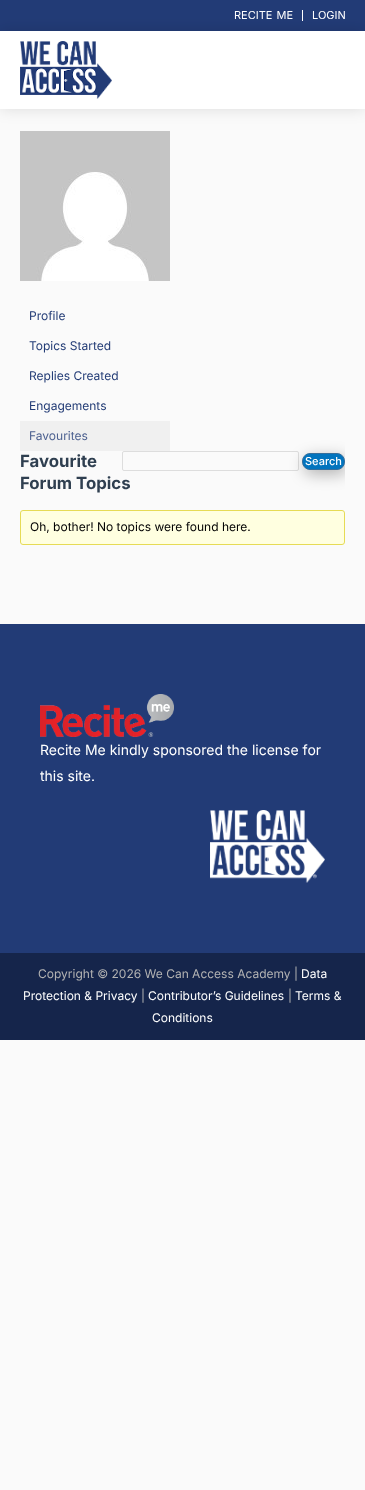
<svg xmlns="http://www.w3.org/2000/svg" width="365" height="1490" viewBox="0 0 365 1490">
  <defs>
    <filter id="blur1" x="-50%" y="-200%" width="200%" height="500%"><feGaussianBlur stdDeviation="7.5"/></filter>
    <clipPath id="clip1"><rect x="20" y="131" width="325" height="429"/></clipPath>
  </defs>
  <rect width="100%" height="100%" fill="#fafafa"/>
  <rect x="0" y="0" width="365" height="31" fill="#223b76"/>
  <rect x="0" y="31" width="365" height="78" fill="#000000" fill-opacity="0.12" filter="url(#blur1)"/>
  <rect x="0" y="31" width="365" height="78" fill="#ffffff"/>
  <image x="20" y="41" width="92" height="58" href="img1.png"/>
  <text x="234" y="19" word-spacing="1" font-family="Inter" font-size="11" fill="#ffffff">RECITE ME</text>
  <rect x="302" y="10" width="1" height="11" fill="#ffffff"/>
  <text x="312" y="19" font-family="Inter" font-size="11" fill="#ffffff">LOGIN</text>
  <image x="20" y="131" width="150" height="150" href="img2.png"/>
  <text x="29" y="320" font-family="Inter" font-size="12" fill="#223b75">Profile</text>
  <text x="29" y="350" font-family="Inter" font-size="12" fill="#223b75">Topics Started</text>
  <text x="29" y="380" font-family="Inter" font-size="12" fill="#223b75">Replies Created</text>
  <text x="29" y="410" font-family="Inter" font-size="12" fill="#223b75">Engagements</text>
  <rect x="20" y="421" width="150" height="30" fill="#f0f0f0"/>
  <text x="29" y="440" font-family="Inter" font-size="12" fill="#4d6190">Favourites</text>
  <text x="20" y="467" font-family="Inter" font-size="16.75" font-weight="bold" fill="#2f3f50">Favourite</text>
  <text x="20" y="489" font-family="Inter" font-size="16.75" font-weight="bold" fill="#2f3f50">Forum Topics</text>
  <rect x="122.5" y="451.5" width="176" height="19" rx="1.5" fill="none" stroke="#dddddd"/>
  <g clip-path="url(#clip1)">
    <rect x="304" y="457" width="43" height="17" rx="8" fill="#000000" fill-opacity="0.3" filter="url(#blur1)"/>
  </g>
  <rect x="302.5" y="453.5" width="42" height="16" rx="7.5" fill="#0274be" stroke="#366f9c"/>
  <text x="305" y="465" font-family="Inter" font-size="11" font-weight="500" fill="#ffffff">Search</text>
  <rect x="20.5" y="510.5" width="324" height="34" rx="2.5" fill="#ffffe0" stroke="#e6db55"/>
  <text x="30" y="531" font-family="Inter" font-size="12" fill="#000000">Oh, bother! No topics were found here.</text>
  <rect x="0" y="624" width="365" height="329" fill="#223b76"/>
  <image x="40" y="694" width="134" height="43" href="img3.png"/>
  <text x="40" y="755" font-family="Inter" font-size="14" fill="#ffffff">Recite Me kindly sponsored the license for</text>
  <text x="40" y="781" font-family="Inter" font-size="14" fill="#ffffff">this site.</text>
  <image x="210" y="810" width="115" height="73" href="img4.png"/>
  <rect x="0" y="953" width="365" height="87" fill="#15254b"/>
  <text x="38" y="978" font-family="Inter" font-size="12" fill="#b3b3b3">Copyright © 2026 We Can Access Academy |</text>
  <text x="301" y="978" font-family="Inter" font-size="12" fill="#ffffff">Data</text>
  <text x="23" y="1000" font-family="Inter" font-size="12" fill="#ffffff">Protection &amp; Privacy</text>
  <text x="141" y="1000" font-family="Inter" font-size="12" fill="#b3b3b3">|</text>
  <text x="148" y="1000" font-family="Inter" font-size="12" fill="#ffffff">Contributor’s Guidelines</text>
  <text x="288" y="1000" font-family="Inter" font-size="12" fill="#b3b3b3">|</text>
  <text x="295" y="1000" font-family="Inter" font-size="12" fill="#ffffff">Terms &amp;</text>
  <text x="152" y="1022" font-family="Inter" font-size="12" fill="#ffffff">Conditions</text>
</svg>
